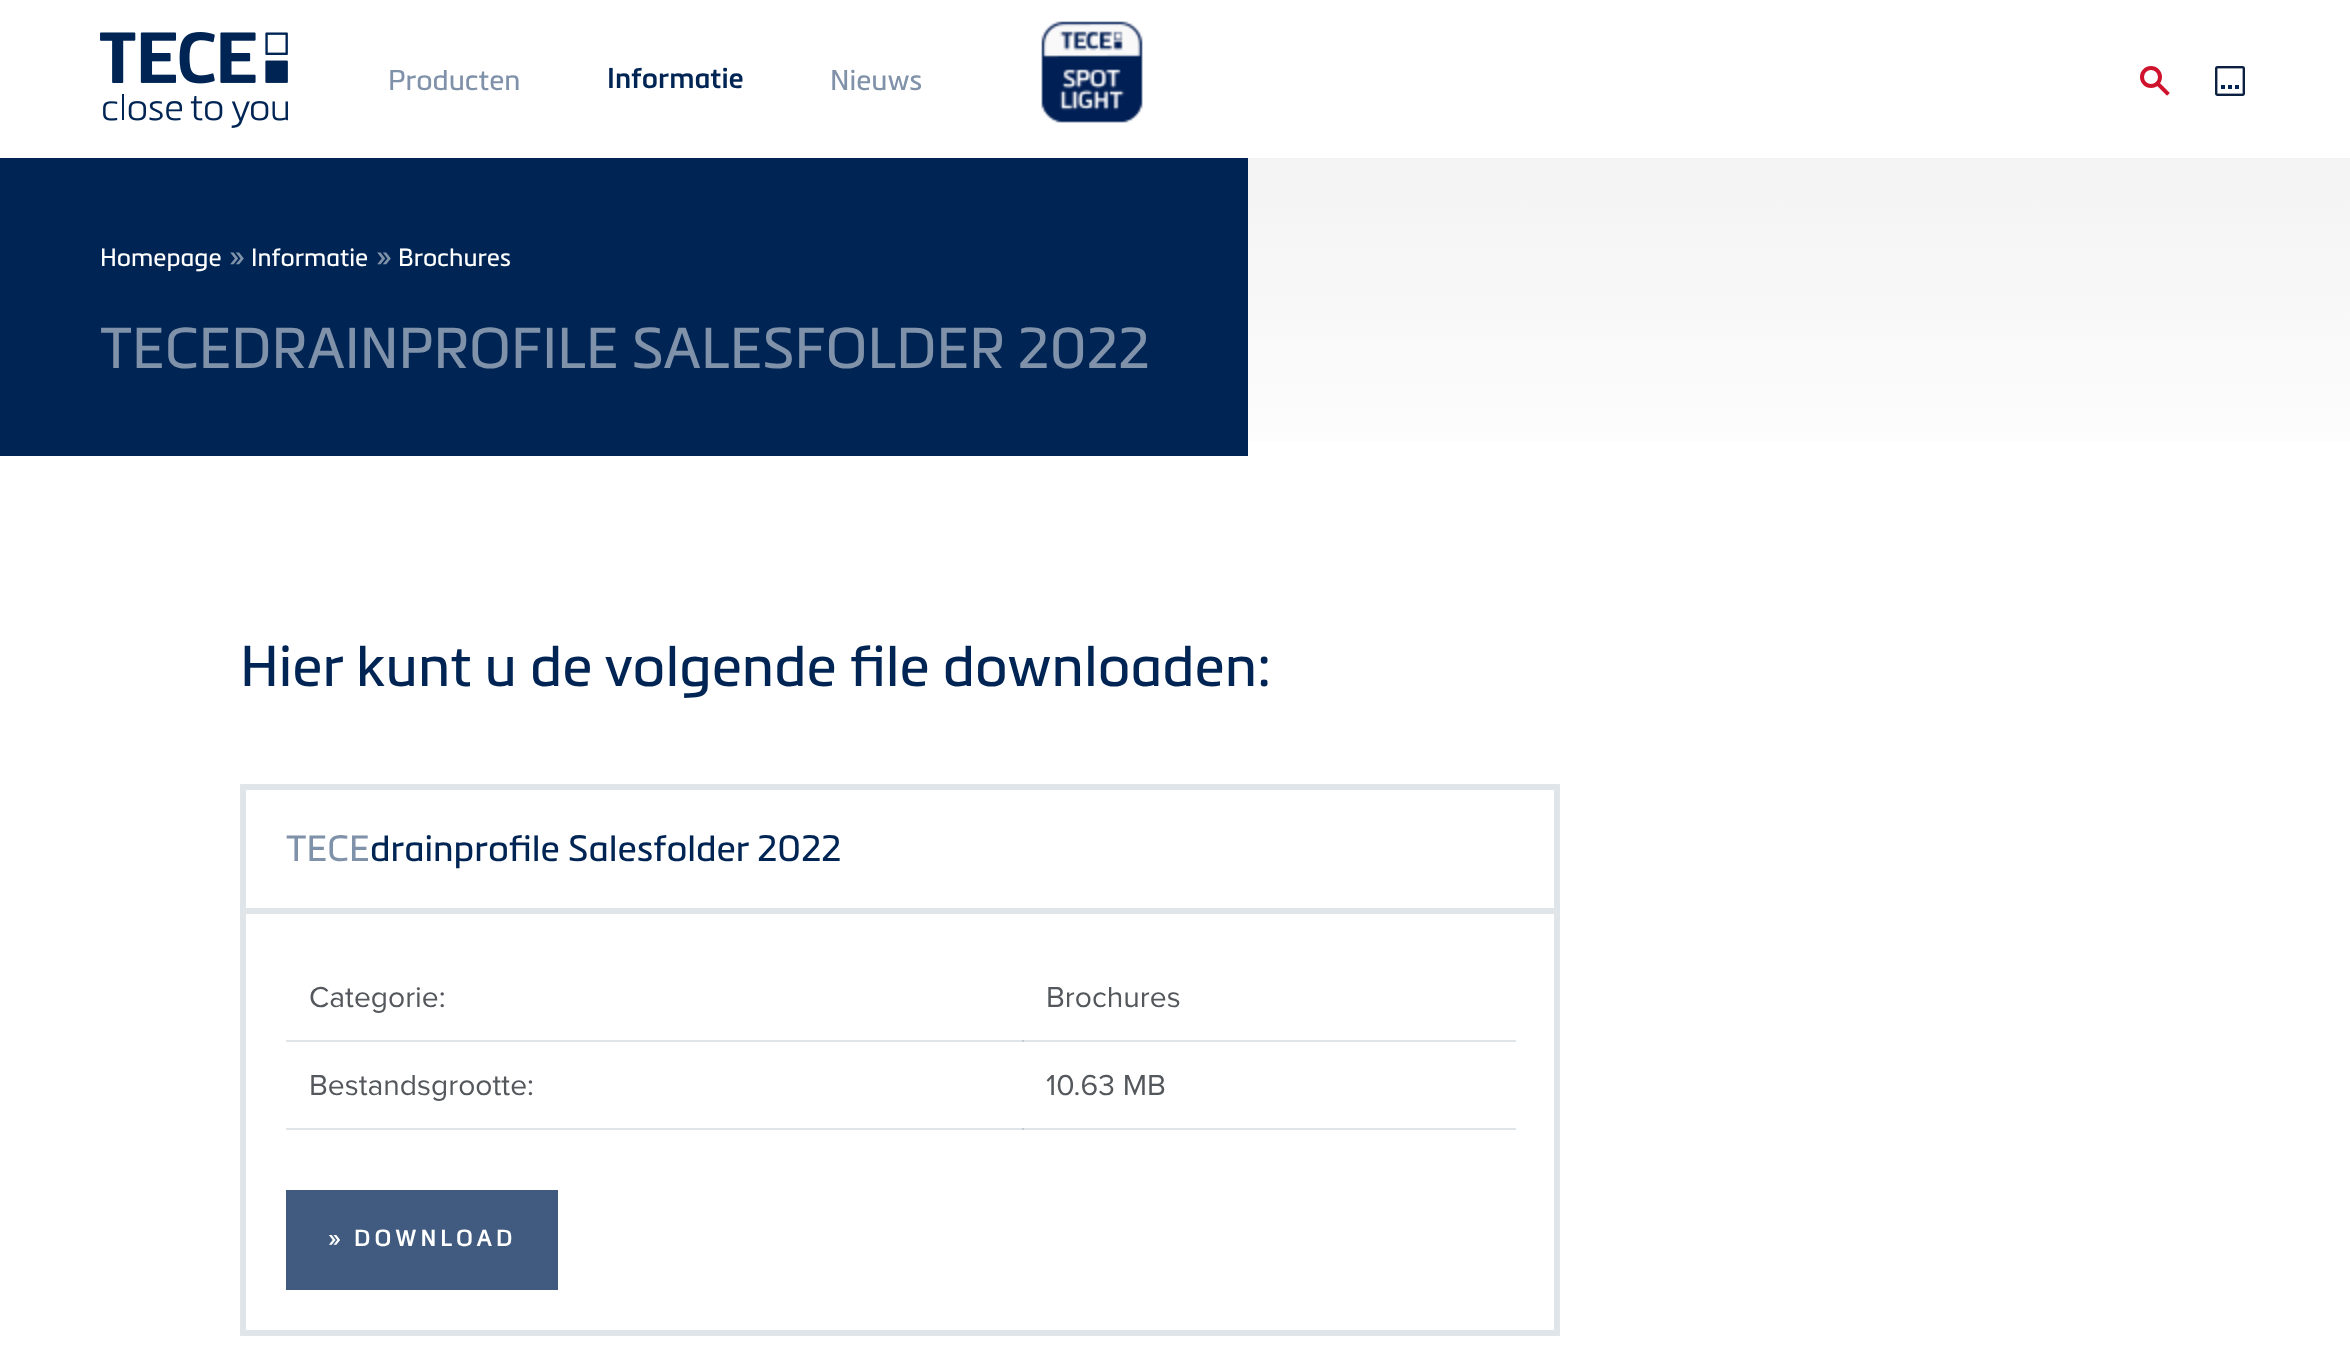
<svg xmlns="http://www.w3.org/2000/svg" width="2350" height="1363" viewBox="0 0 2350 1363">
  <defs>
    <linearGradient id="g1" gradientUnits="userSpaceOnUse" x1="1175" y1="158" x2="1175" y2="516"><stop offset="0" stop-color="#f4f3f4"/><stop offset="1" stop-color="#ffffff"/></linearGradient>
  </defs>
  <rect width="100%" height="100%" fill="#ffffff"/>
  <rect x="286" y="1040" width="738" height="2" fill="#e0e5e9"/>
  <rect x="286" y="1128" width="738" height="2" fill="#e0e5e9"/>
  <image x="100" y="32" width="188" height="96" href="img1.png"/>
  <text x="388" y="90" font-family="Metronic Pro" font-size="28.25" fill="#8092a9">Producten</text>
  <text x="607" y="88" font-family="Metronic Pro" font-size="28.25" font-weight="600" fill="#002554">Informatie</text>
  <text x="830" y="90" font-family="Metronic Pro" font-size="28.25" fill="#8092a9">Nieuws</text>
  <image x="1041" y="21" width="102" height="102" href="img2.png"/>
  <circle cx="2151" cy="77" r="9" fill="none" stroke="#cf132c" stroke-width="4"/>
  <path d="M2158 84L2167 93" fill="none" stroke="#cf132c" stroke-width="4" stroke-linecap="square"/>
  <image x="2215" y="66" width="30" height="30" href="img3.png"/>
  <rect x="0" y="158" width="2350" height="283" fill="url(#g1)"/>
  <rect x="0" y="158" width="1248" height="298" fill="#002554"/>
  <text x="100" y="266" font-family="Metronic Pro" font-size="24.5" fill="#ffffff">Homepage</text>
  <text x="229" y="266" font-family="Metronic Pro" font-size="28.25" font-weight="600" fill="#8092a9">»</text>
  <text x="251" y="266" font-family="Metronic Pro" font-size="24.5" fill="#ffffff">Informatie</text>
  <text x="376" y="266" font-family="Metronic Pro" font-size="28.25" font-weight="600" fill="#8092a9">»</text>
  <text x="398" y="266" font-family="Metronic Pro" font-size="24.5" fill="#ffffff">Brochures</text>
  <text x="100" y="368" font-family="Metronic Pro" font-size="56.5" fill="#8092a9">TECEDRAINPROFILE SALESFOLDER 2022</text>
  <text x="240" y="686" font-family="Metronic Pro" font-size="56.5" fill="#002554">Hier kunt u de volgende file downloaden:</text>
  <rect x="243" y="787" width="1314" height="546" fill="none" stroke="#e0e5e9" stroke-width="6"/>
  <rect x="246" y="908" width="1308" height="6" fill="#e0e5e9"/>
  <text x="286" y="861" font-family="Metronic Pro" font-size="36" fill="#8092a9">TECE</text>
  <text x="370" y="861" font-family="Metronic Pro" font-size="36" fill="#002554">drainprofile Salesfolder 2022</text>
  <text x="309" y="1007" font-family="Proxima Nova" font-size="30" fill="#54585d">Categorie:</text>
  <rect x="1022" y="1040" width="494" height="2" fill="#e0e5e9"/>
  <rect x="1022" y="1040" width="2" height="2" fill="#c6cfd6"/>
  <text x="1046" y="1007" font-family="Proxima Nova" font-size="30" fill="#54585d">Brochures</text>
  <text x="309" y="1095" font-family="Proxima Nova" font-size="30" fill="#54585d">Bestandsgrootte:</text>
  <rect x="1022" y="1128" width="494" height="2" fill="#e0e5e9"/>
  <rect x="1022" y="1128" width="2" height="2" fill="#c6cfd6"/>
  <text x="1046" y="1095" font-family="Proxima Nova" font-size="30" fill="#54585d">10.63 MB</text>
  <rect x="286" y="1190" width="272" height="100" fill="#405b7f"/>
  <text x="328" y="1246" font-family="Metronic Pro" font-size="23" font-weight="600" letter-spacing="4" fill="#ffffff">» DOWNLOAD</text>
</svg>
